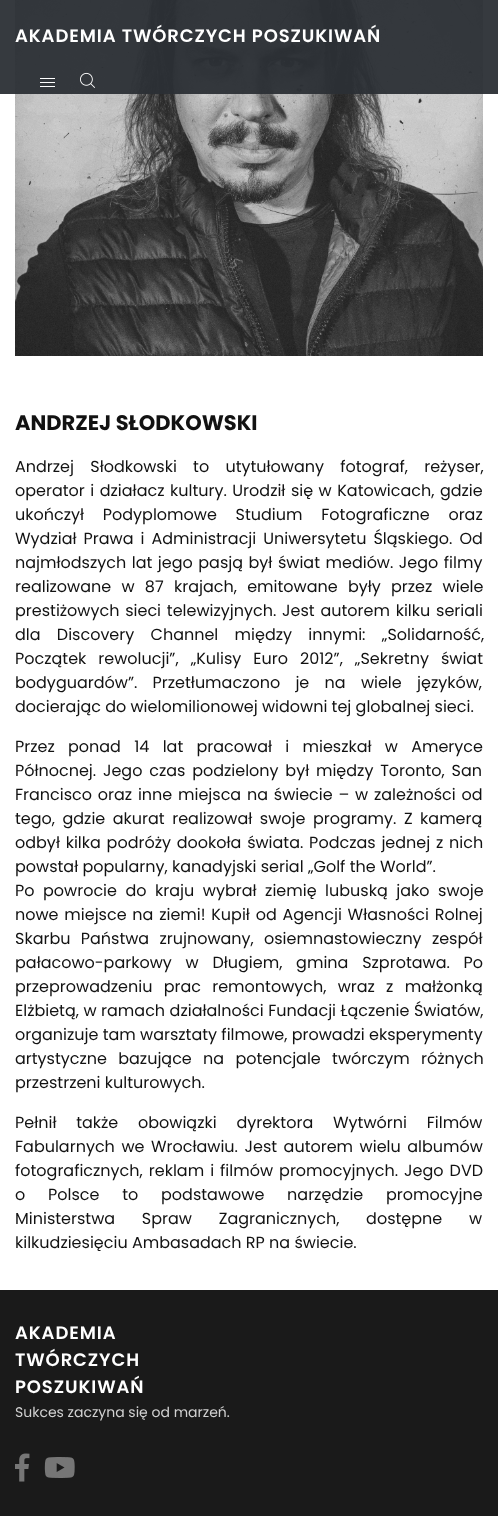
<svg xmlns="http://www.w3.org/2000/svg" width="498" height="1516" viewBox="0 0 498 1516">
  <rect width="100%" height="100%" fill="#ffffff"/>
  <image x="15" y="0" width="468" height="356" href="img2.png"/>
  <rect x="0" y="0" width="498" height="94" fill="#2b2f35" fill-opacity="0.95"/>
  <text x="15" y="42" font-family="Poppins" font-size="18" font-weight="600" letter-spacing="0.9" fill="#ffffff">AKADEMIA TWÓRCZYCH POSZUKIWAŃ</text>
  <rect x="40" y="78" width="15" height="1" fill="#ffffff"/>
  <rect x="40" y="82" width="15" height="1" fill="#ffffff"/>
  <rect x="40" y="86" width="15" height="1" fill="#ffffff"/>
  <image x="80" y="72" width="15" height="16" href="img1.png"/>
  <text x="15" y="430" font-family="Poppins" font-size="21" font-weight="bold" fill="#121212">ANDRZEJ SŁODKOWSKI</text>
  <text x="15" y="472" word-spacing="12" font-family="Poppins" font-size="16" fill="#121212">Andrzej Słodkowski to utytułowany fotograf, reżyser,</text>
  <text x="15" y="496" word-spacing="1.25" font-family="Poppins" font-size="16" fill="#121212">operator i działacz kultury. Urodził się w Katowicach, gdzie</text>
  <text x="15" y="520" word-spacing="14.5" font-family="Poppins" font-size="16" fill="#121212">ukończył Podyplomowe Studium Fotograficzne oraz</text>
  <text x="15" y="544" word-spacing="2.75" font-family="Poppins" font-size="16" fill="#121212">Wydział Prawa i Administracji Uniwersytetu Śląskiego. Od</text>
  <text x="15" y="568" word-spacing="1.25" font-family="Poppins" font-size="16" fill="#121212">najmłodszych lat jego pasją był świat mediów. Jego filmy</text>
  <text x="15" y="592" word-spacing="6" font-family="Poppins" font-size="16" fill="#121212">realizowane w 87 krajach, emitowane były przez wiele</text>
  <text x="15" y="616" word-spacing="1.5" font-family="Poppins" font-size="16" fill="#121212">prestiżowych sieci telewizyjnych. Jest autorem kilku seriali</text>
  <text x="15" y="640" word-spacing="12" font-family="Poppins" font-size="16" fill="#121212">dla Discovery Channel między innymi: „Solidarność,</text>
  <text x="15" y="664" word-spacing="7.75" font-family="Poppins" font-size="16" fill="#121212">Początek rewolucji”, „Kulisy Euro 2012”, „Sekretny świat</text>
  <text x="15" y="688" word-spacing="11" font-family="Poppins" font-size="16" fill="#121212">bodyguardów”. Przetłumaczono je na wiele języków,</text>
  <text x="15" y="712" font-family="Poppins" font-size="16" fill="#121212">docierając do wielomilionowej widowni tej globalnej sieci.</text>
  <text x="15" y="752" word-spacing="9" font-family="Poppins" font-size="16" fill="#121212">Przez ponad 14 lat pracował i mieszkał w Ameryce</text>
  <text x="15" y="776" word-spacing="2.5" font-family="Poppins" font-size="16" fill="#121212">Północnej. Jego czas podzielony był między Toronto, San</text>
  <text x="15" y="800" word-spacing="1.5" font-family="Poppins" font-size="16" fill="#121212">Francisco oraz inne miejsca na świecie – w zależności od</text>
  <text x="15" y="824" word-spacing="3.25" font-family="Poppins" font-size="16" fill="#121212">tego, gdzie akurat realizował swoje programy. Z kamerą</text>
  <text x="15" y="848" word-spacing="1.5" font-family="Poppins" font-size="16" fill="#121212">odbył kilka podróży dookoła świata. Podczas jednej z nich</text>
  <text x="15" y="872" font-family="Poppins" font-size="16" fill="#121212">powstał popularny, kanadyjski serial „Golf the World”.</text>
  <text x="15" y="896" word-spacing="4.25" font-family="Poppins" font-size="16" fill="#121212">Po powrocie do kraju wybrał ziemię lubuską jako swoje</text>
  <text x="15" y="920" word-spacing="1.5" font-family="Poppins" font-size="16" fill="#121212">nowe miejsce na ziemi! Kupił od Agencji Własności Rolnej</text>
  <text x="15" y="944" word-spacing="6" font-family="Poppins" font-size="16" fill="#121212">Skarbu Państwa zrujnowany, osiemnastowieczny zespół</text>
  <text x="15" y="968" word-spacing="9.5" font-family="Poppins" font-size="16" fill="#121212">pałacowo-parkowy w Długiem, gmina Szprotawa. Po</text>
  <text x="15" y="992" word-spacing="7" font-family="Poppins" font-size="16" fill="#121212">przeprowadzeniu prac remontowych, wraz z małżonką</text>
  <text x="15" y="1016" word-spacing="0.25" font-family="Poppins" font-size="16" fill="#121212">Elżbietą, w ramach działalności Fundacji Łączenie Światów,</text>
  <text x="15" y="1040" font-family="Poppins" font-size="16" fill="#121212">organizuje tam warsztaty filmowe, prowadzi eksperymenty</text>
  <text x="15" y="1064" word-spacing="7" font-family="Poppins" font-size="16" fill="#121212">artystyczne bazujące na potencjale twórczym różnych</text>
  <text x="15" y="1088" font-family="Poppins" font-size="16" fill="#121212">przestrzeni kulturowych.</text>
  <text x="15" y="1128" word-spacing="15.5" font-family="Poppins" font-size="16" fill="#121212">Pełnił także obowiązki dyrektora Wytwórni Filmów</text>
  <text x="15" y="1152" word-spacing="2.25" font-family="Poppins" font-size="16" fill="#121212">Fabularnych we Wrocławiu. Jest autorem wielu albumów</text>
  <text x="15" y="1176" word-spacing="1.75" font-family="Poppins" font-size="16" fill="#121212">fotograficznych, reklam i filmów promocyjnych. Jego DVD</text>
  <text x="15" y="1200" word-spacing="18.5" font-family="Poppins" font-size="16" fill="#121212">o Polsce to podstawowe narzędzie promocyjne</text>
  <text x="15" y="1224" word-spacing="22.5" font-family="Poppins" font-size="16" fill="#121212">Ministerstwa Spraw Zagranicznych, dostępne w</text>
  <text x="15" y="1248" font-family="Poppins" font-size="16" fill="#121212">kilkudziesięciu Ambasadach RP na świecie.</text>
  <rect x="0" y="1290" width="498" height="226" fill="#1a1a1a"/>
  <text x="15" y="1339" font-family="Poppins" font-size="18" font-weight="600" letter-spacing="0.9" fill="#ffffff">AKADEMIA</text>
  <text x="15" y="1366" font-family="Poppins" font-size="18" font-weight="600" letter-spacing="0.9" fill="#ffffff">TWÓRCZYCH</text>
  <text x="15" y="1393" font-family="Poppins" font-size="18" font-weight="600" letter-spacing="0.9" fill="#ffffff">POSZUKIWAŃ</text>
  <text x="15" y="1417" font-family="Poppins" font-size="14" fill="#d1d1d1">Sukces zaczyna się od marzeń.</text>
  <image x="15" y="1453" width="15" height="29" href="img3.png"/>
  <image x="44" y="1457" width="31" height="21" href="img4.png"/>
</svg>
